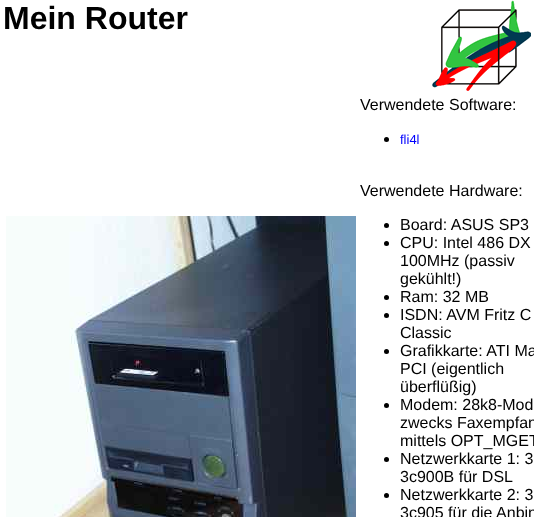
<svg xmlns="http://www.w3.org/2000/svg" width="534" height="517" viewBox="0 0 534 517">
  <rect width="100%" height="100%" fill="#ffffff"/>
  <text x="3" y="29" font-family="Liberation Sans" font-size="32" font-weight="bold" fill="#000000">Mein Router</text>
  <image x="432" y="0" width="99" height="91" href="img1.png"/>
  <image x="6" y="216" width="350" height="301" href="img2.png"/>
  <text x="360" y="110" font-family="Liberation Sans" font-size="16" fill="#000000">Verwendete Software:</text>
  <circle cx="386.5" cy="139.5" r="2.5" fill="#000000"/>
  <text x="400" y="144" font-family="Liberation Sans" font-size="13" fill="#0000ff">fli4l</text>
  <text x="360" y="196" font-family="Liberation Sans" font-size="16" fill="#000000">Verwendete Hardware:</text>
  <circle cx="386.5" cy="225.5" r="2.5" fill="#000000"/>
  <text x="400" y="230" font-family="Liberation Sans" font-size="16" fill="#000000">Board: ASUS SP3</text>
  <circle cx="386.5" cy="243.5" r="2.5" fill="#000000"/>
  <text x="400" y="248" font-family="Liberation Sans" font-size="16" fill="#000000">CPU: Intel 486 DX</text>
  <text x="400" y="266" font-family="Liberation Sans" font-size="16" fill="#000000">100MHz (passiv</text>
  <text x="400" y="284" font-family="Liberation Sans" font-size="16" fill="#000000">gekühlt!)</text>
  <circle cx="386.5" cy="297.5" r="2.5" fill="#000000"/>
  <text x="400" y="302" font-family="Liberation Sans" font-size="16" fill="#000000">Ram: 32 MB</text>
  <circle cx="386.5" cy="315.5" r="2.5" fill="#000000"/>
  <text x="400" y="320" font-family="Liberation Sans" font-size="16" fill="#000000">ISDN: AVM Fritz C</text>
  <text x="400" y="338" font-family="Liberation Sans" font-size="16" fill="#000000">Classic</text>
  <circle cx="386.5" cy="351.5" r="2.5" fill="#000000"/>
  <text x="400" y="356" font-family="Liberation Sans" font-size="16" fill="#000000">Grafikkarte: ATI Ma</text>
  <text x="400" y="374" font-family="Liberation Sans" font-size="16" fill="#000000">PCI (eigentlich</text>
  <text x="400" y="392" font-family="Liberation Sans" font-size="16" fill="#000000">überflüßig)</text>
  <circle cx="386.5" cy="405.5" r="2.5" fill="#000000"/>
  <text x="400" y="410" font-family="Liberation Sans" font-size="16" fill="#000000">Modem: 28k8-Mod</text>
  <text x="400" y="428" font-family="Liberation Sans" font-size="16" fill="#000000">zwecks Faxempfan</text>
  <text x="400" y="446" font-family="Liberation Sans" font-size="16" fill="#000000">mittels OPT_MGET</text>
  <circle cx="386.5" cy="459.5" r="2.5" fill="#000000"/>
  <text x="400" y="464" font-family="Liberation Sans" font-size="16" fill="#000000">Netzwerkkarte 1: 3</text>
  <text x="400" y="482" font-family="Liberation Sans" font-size="16" fill="#000000">3c900B für DSL</text>
  <circle cx="386.5" cy="495.5" r="2.5" fill="#000000"/>
  <text x="400" y="500" font-family="Liberation Sans" font-size="16" fill="#000000">Netzwerkkarte 2: 3</text>
  <text x="400" y="518" font-family="Liberation Sans" font-size="16" fill="#000000">3c905 für die Anbin</text>
</svg>
